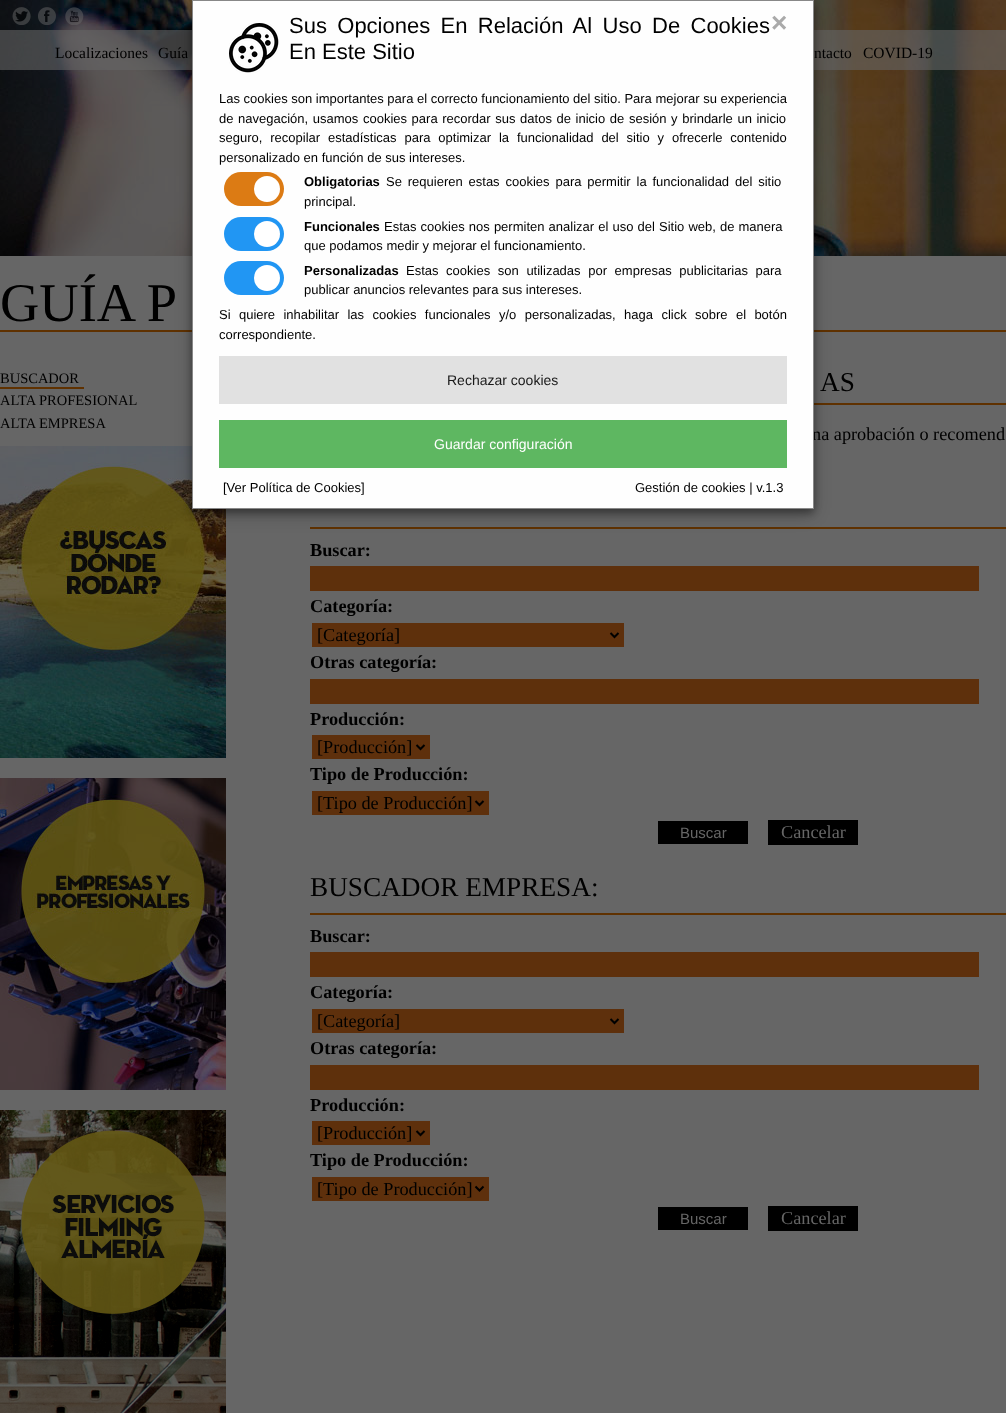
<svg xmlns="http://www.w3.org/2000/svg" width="1006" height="1413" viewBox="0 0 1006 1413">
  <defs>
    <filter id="blur1" x="-50%" y="-200%" width="200%" height="500%"><feGaussianBlur stdDeviation="10"/></filter>
    <filter id="blur2" x="-50%" y="-200%" width="200%" height="500%"><feGaussianBlur stdDeviation="4"/></filter>
  </defs>
  <rect width="100%" height="100%" fill="#666666"/>
  <image x="0" y="0" width="1006" height="256" href="img2.png"/>
  <rect x="0" y="30" width="1006" height="40" fill="#666666" fill-opacity="0.6"/>
  <rect x="0" y="330" width="1006" height="2" fill="#5f3100"/>
  <image x="0" y="446" width="226" height="312" href="img6.png"/>
  <rect x="814" y="403" width="192" height="2" fill="#5f3100"/>
  <rect x="310" y="527" width="696" height="2" fill="#5f3100"/>
  <rect x="192" y="6" width="622" height="509" fill="#000000" fill-opacity="0.19" filter="url(#blur1)"/>
  <rect x="192" y="4" width="622" height="509" fill="#000000" fill-opacity="0.4" filter="url(#blur2)"/>
  <text x="812" y="440" font-family="Liberation Serif" font-size="18.25" fill="#000000">na aprobación o recomend</text>
  <rect x="192.5" y="0.5" width="621" height="508" fill="#fefefe" stroke="#888888"/>
  <image x="229" y="23" width="50" height="50" href="img1.png"/>
  <text x="289" y="33" word-spacing="4.25" font-family="Liberation Sans" font-size="22" fill="#000000">Sus Opciones En Relación Al Uso De Cookies</text>
  <text x="289" y="59" font-family="Liberation Sans" font-size="22" fill="#000000">En Este Sitio</text>
  <text x="771" y="32" font-family="Liberation Sans" font-size="28" font-weight="bold" fill="#aaaaaa">×</text>
  <text x="219" y="103" font-family="Liberation Sans" font-size="13" fill="#000000">Las cookies son importantes para el correcto funcionamiento del sitio. Para mejorar su experiencia</text>
  <text x="219" y="123" word-spacing="1" font-family="Liberation Sans" font-size="13" fill="#000000">de navegación, usamos cookies para recordar sus datos de inicio de sesión y brindarle un inicio</text>
  <text x="219" y="142" word-spacing="4.25" font-family="Liberation Sans" font-size="13" fill="#000000">seguro, recopilar estadísticas para optimizar la funcionalidad del sitio y ofrecerle contenido</text>
  <text x="219" y="162" font-family="Liberation Sans" font-size="13" fill="#000000">personalizado en función de sus intereses.</text>
  <rect x="224" y="172" width="60" height="34" rx="17" fill="#dc7b14"/>
  <circle cx="267" cy="189" r="13" fill="#ffffff"/>
  <text x="304" y="186" font-family="Liberation Sans" font-size="13" font-weight="bold" fill="#000000">Obligatorias</text>
  <text x="386" y="186" word-spacing="2.25" font-family="Liberation Sans" font-size="13" fill="#000000">Se requieren estas cookies para permitir la funcionalidad del sitio</text>
  <text x="304" y="206" font-family="Liberation Sans" font-size="13" fill="#000000">principal.</text>
  <rect x="224" y="217" width="60" height="34" rx="17" fill="#2196f3"/>
  <circle cx="267" cy="234" r="13" fill="#ffffff"/>
  <text x="304" y="231" font-family="Liberation Sans" font-size="13" font-weight="bold" fill="#000000">Funcionales</text>
  <text x="384" y="231" word-spacing="0.5" font-family="Liberation Sans" font-size="13" fill="#000000">Estas cookies nos permiten analizar el uso del Sitio web, de manera</text>
  <text x="304" y="250" font-family="Liberation Sans" font-size="13" fill="#000000">que podamos medir y mejorar el funcionamiento.</text>
  <rect x="224" y="261" width="60" height="34" rx="17" fill="#2196f3"/>
  <circle cx="267" cy="278" r="13" fill="#ffffff"/>
  <text x="304" y="275" font-family="Liberation Sans" font-size="13" font-weight="bold" fill="#000000">Personalizadas</text>
  <text x="406" y="275" word-spacing="4" font-family="Liberation Sans" font-size="13" fill="#000000">Estas cookies son utilizadas por empresas publicitarias para</text>
  <text x="304" y="294" font-family="Liberation Sans" font-size="13" fill="#000000">publicar anuncios relevantes para sus intereses.</text>
  <text x="219" y="319" word-spacing="4.75" font-family="Liberation Sans" font-size="13" fill="#000000">Si quiere inhabilitar las cookies funcionales y/o personalizadas, haga click sobre el botón</text>
  <text x="219" y="339" font-family="Liberation Sans" font-size="13" fill="#000000">correspondiente.</text>
  <rect x="219" y="356" width="568" height="48" fill="#e1e1e1"/>
  <text x="447" y="385" font-family="Liberation Sans" font-size="14" fill="#191919">Rechazar cookies</text>
  <rect x="219" y="420" width="568" height="48" fill="#5eb761"/>
  <text x="434" y="449" font-family="Liberation Sans" font-size="14" fill="#ffffff">Guardar configuración</text>
  <text x="223" y="492" font-family="Liberation Sans" font-size="13" fill="#000000">[Ver Política de Cookies]</text>
  <text x="635" y="492" font-family="Liberation Sans" font-size="13" fill="#000000">Gestión de cookies | v.1.3</text>
  <image x="12" y="7" width="19" height="18" href="img3.png"/>
  <image x="38" y="7" width="18" height="18" href="img4.png"/>
  <image x="65" y="7" width="19" height="18" href="img5.png"/>
  <text x="55" y="58" font-family="Liberation Serif" font-size="15.5" fill="#000000">Localizaciones</text>
  <text x="158" y="58" font-family="Liberation Serif" font-size="15.5" fill="#000000">Guía</text>
  <text x="814" y="58" font-family="Liberation Serif" font-size="15.5" fill="#000000">ntacto</text>
  <text x="863" y="58" font-family="Liberation Serif" font-size="15.5" fill="#000000">COVID-19</text>
  <text x="0" y="321" font-family="Liberation Serif" font-size="54.5" fill="#000000">GUÍA P</text>
  <text x="0" y="383" font-family="Liberation Serif" font-size="14.5" fill="#000000">BUSCADOR</text>
  <rect x="0" y="387" width="84" height="2" fill="#5f3100"/>
  <text x="0" y="405" font-family="Liberation Serif" font-size="14.5" fill="#000000">ALTA PROFESIONAL</text>
  <text x="0" y="428" font-family="Liberation Serif" font-size="14.5" fill="#000000">ALTA EMPRESA</text>
  <image x="0" y="778" width="226" height="312" href="img7.png"/>
  <image x="0" y="1110" width="226" height="303" href="img8.png"/>
  <text x="820" y="391" font-family="Liberation Serif" font-size="27.25" fill="#000000">AS</text>
  <text x="310" y="556" font-family="Liberation Serif" font-size="18.25" font-weight="bold" fill="#000000">Buscar:</text>
  <rect x="310" y="566" width="669" height="25" fill="#5e300c"/>
  <text x="310" y="612" font-family="Liberation Serif" font-size="18.25" font-weight="bold" fill="#000000">Categoría:</text>
  <rect x="312" y="623" width="312" height="24" fill="#5e300c"/>
  <path d="M610.5 633L614.5 637L618.5 633" fill="none" stroke="#000000" stroke-width="2"/>
  <text x="317" y="641" font-family="Liberation Serif" font-size="18.25" fill="#000000">[Categoría]</text>
  <text x="310" y="668" font-family="Liberation Serif" font-size="18.25" font-weight="bold" fill="#000000">Otras categoría:</text>
  <rect x="310" y="679" width="669" height="25" fill="#5e300c"/>
  <text x="310" y="725" font-family="Liberation Serif" font-size="18.25" font-weight="bold" fill="#000000">Producción:</text>
  <rect x="312" y="735" width="118" height="24" fill="#5e300c"/>
  <path d="M416.5 745L420.5 749L424.5 745" fill="none" stroke="#000000" stroke-width="2"/>
  <text x="317" y="753" font-family="Liberation Serif" font-size="18.25" fill="#000000">[Producción]</text>
  <text x="310" y="780" font-family="Liberation Serif" font-size="18.25" font-weight="bold" fill="#000000">Tipo de Producción:</text>
  <rect x="312" y="791" width="177" height="24" fill="#5e300c"/>
  <path d="M475.5 801L479.5 805L483.5 801" fill="none" stroke="#000000" stroke-width="2"/>
  <text x="317" y="809" font-family="Liberation Serif" font-size="18.25" fill="#000000">[Tipo de Producción]</text>
  <rect x="658" y="821" width="90" height="23" fill="#000000"/>
  <text x="680" y="838" font-family="Liberation Sans" font-size="15" fill="#666666">Buscar</text>
  <rect x="768" y="820" width="90" height="25" fill="#000000"/>
  <text x="781" y="838" font-family="Liberation Serif" font-size="18.25" fill="#666666">Cancelar</text>
  <rect x="310" y="913" width="696" height="2" fill="#5f3100"/>
  <text x="310" y="896" font-family="Liberation Serif" font-size="27.25" fill="#000000">BUSCADOR EMPRESA:</text>
  <text x="310" y="942" font-family="Liberation Serif" font-size="18.25" font-weight="bold" fill="#000000">Buscar:</text>
  <rect x="310" y="952" width="669" height="25" fill="#5e300c"/>
  <text x="310" y="998" font-family="Liberation Serif" font-size="18.25" font-weight="bold" fill="#000000">Categoría:</text>
  <rect x="312" y="1009" width="312" height="24" fill="#5e300c"/>
  <path d="M610.5 1019L614.5 1023L618.5 1019" fill="none" stroke="#000000" stroke-width="2"/>
  <text x="317" y="1027" font-family="Liberation Serif" font-size="18.25" fill="#000000">[Categoría]</text>
  <text x="310" y="1054" font-family="Liberation Serif" font-size="18.25" font-weight="bold" fill="#000000">Otras categoría:</text>
  <rect x="310" y="1065" width="669" height="25" fill="#5e300c"/>
  <text x="310" y="1111" font-family="Liberation Serif" font-size="18.25" font-weight="bold" fill="#000000">Producción:</text>
  <rect x="312" y="1121" width="118" height="24" fill="#5e300c"/>
  <path d="M416.5 1131L420.5 1135L424.5 1131" fill="none" stroke="#000000" stroke-width="2"/>
  <text x="317" y="1139" font-family="Liberation Serif" font-size="18.25" fill="#000000">[Producción]</text>
  <text x="310" y="1166" font-family="Liberation Serif" font-size="18.25" font-weight="bold" fill="#000000">Tipo de Producción:</text>
  <rect x="312" y="1177" width="177" height="24" fill="#5e300c"/>
  <path d="M475.5 1186.5L479.5 1190.5L483.5 1186.5" fill="none" stroke="#000000" stroke-width="2"/>
  <text x="317" y="1195" font-family="Liberation Serif" font-size="18.25" fill="#000000">[Tipo de Producción]</text>
  <rect x="658" y="1207" width="90" height="23" fill="#000000"/>
  <text x="680" y="1224" font-family="Liberation Sans" font-size="15" fill="#666666">Buscar</text>
  <rect x="768" y="1206" width="90" height="25" fill="#000000"/>
  <text x="781" y="1224" font-family="Liberation Serif" font-size="18.25" fill="#666666">Cancelar</text>
</svg>
